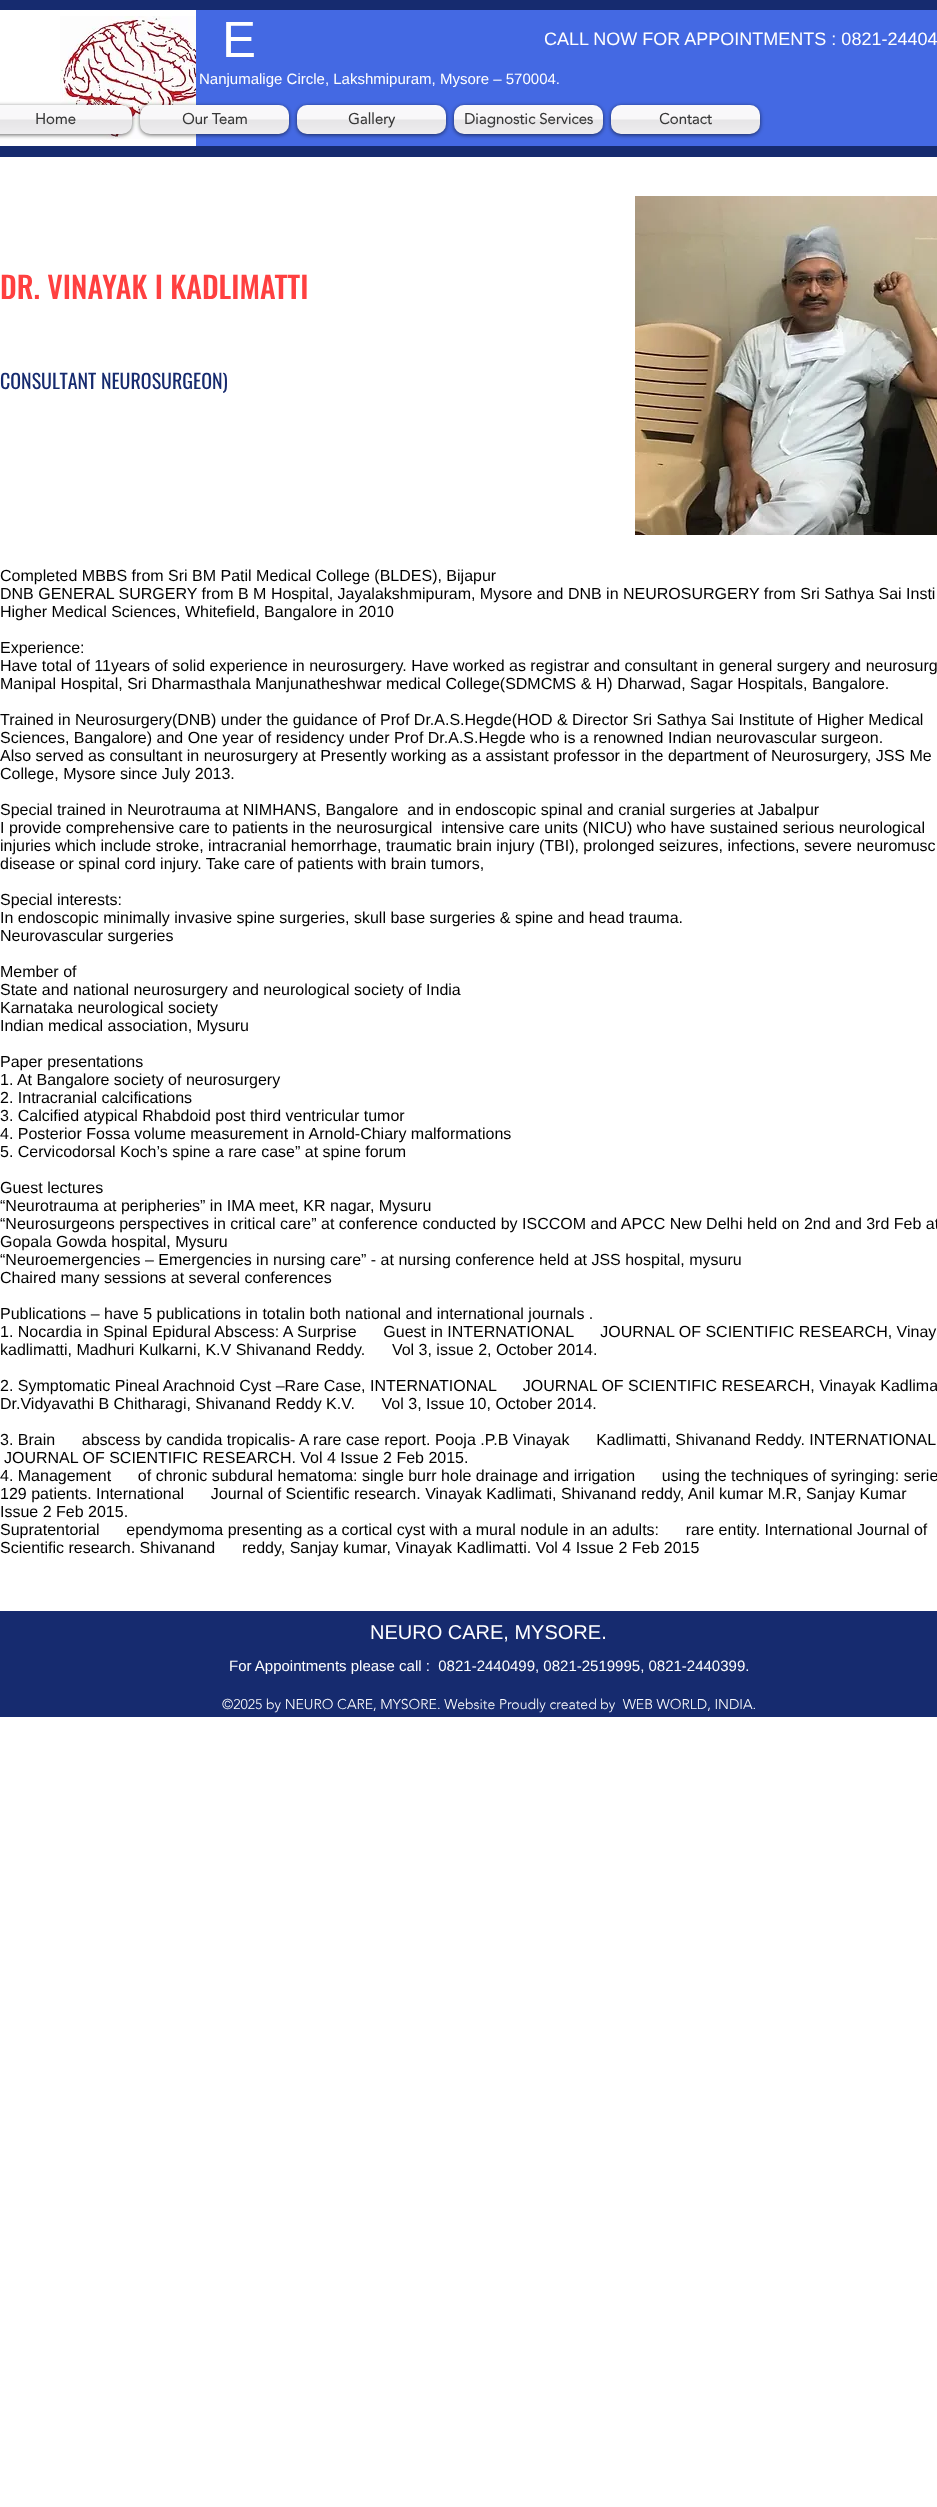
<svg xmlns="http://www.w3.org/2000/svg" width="937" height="2507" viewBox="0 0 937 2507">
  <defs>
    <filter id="blur1" x="-50%" y="-200%" width="200%" height="500%"><feGaussianBlur stdDeviation="2"/></filter>
  </defs>
  <rect width="100%" height="100%" fill="#ffffff"/>
  <rect x="0" y="0" width="937" height="157" fill="#162b6f"/>
  <rect x="0" y="10" width="196" height="136" fill="#ffffff"/>
  <image x="60" y="16" width="136" height="123" href="img1.png"/>
  <rect x="196" y="10" width="741" height="136" fill="#4469e3"/>
  <text x="222" y="57" font-family="Liberation Sans" font-size="51" fill="#ffffff">E</text>
  <text x="544" y="45" font-family="Liberation Sans" font-size="18" fill="#ffffff">CALL NOW FOR APPOINTMENTS : 0821-24404</text>
  <text x="199" y="84" font-family="Liberation Sans" font-size="15" fill="#ffffff">Nanjumalige Circle, Lakshmipuram, Mysore – 570004.</text>
  <rect x="-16" y="106" width="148" height="29" rx="10" fill="#000000" fill-opacity="0.6" filter="url(#blur1)"/>
  <rect x="-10" y="105" width="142" height="29" rx="10" fill="#f8f7f9"/>
  <image x="0" y="105" width="132" height="29" href="img2.png"/>
  <text x="35" y="124" font-family="'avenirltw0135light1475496'" font-size="15" font-weight="bold" fill="#383838">Home</text>
  <rect x="140" y="106" width="149" height="29" rx="10" fill="#000000" fill-opacity="0.6" filter="url(#blur1)"/>
  <rect x="140" y="105" width="149" height="29" rx="10" fill="#f8f7f9"/>
  <image x="140" y="105" width="149" height="29" href="img3.png"/>
  <text x="182" y="124" font-family="'avenirltw0135light1475496'" font-size="15" font-weight="bold" fill="#383838">Our Team</text>
  <rect x="297" y="106" width="149" height="29" rx="10" fill="#000000" fill-opacity="0.6" filter="url(#blur1)"/>
  <rect x="297" y="105" width="149" height="29" rx="10" fill="#f8f7f9"/>
  <image x="297" y="105" width="149" height="29" href="img4.png"/>
  <text x="348" y="124" font-family="'avenirltw0135light1475496'" font-size="15" font-weight="bold" fill="#383838">Gallery</text>
  <rect x="454" y="106" width="149" height="29" rx="10" fill="#000000" fill-opacity="0.6" filter="url(#blur1)"/>
  <rect x="454" y="105" width="149" height="29" rx="10" fill="#f8f7f9"/>
  <image x="454" y="105" width="149" height="29" href="img5.png"/>
  <text x="464" y="124" font-family="'avenirltw0135light1475496'" font-size="15" font-weight="bold" fill="#383838">Diagnostic Services</text>
  <rect x="611" y="106" width="149" height="29" rx="10" fill="#000000" fill-opacity="0.6" filter="url(#blur1)"/>
  <rect x="611" y="105" width="149" height="29" rx="10" fill="#f8f7f9"/>
  <image x="611" y="105" width="149" height="29" href="img5.png"/>
  <text x="659" y="124" font-family="'avenirltw0135light1475496'" font-size="15" font-weight="bold" fill="#383838">Contact</text>
  <text x="0" y="299" font-family="Oswald" font-size="30" font-weight="500" fill="#ff4040">DR. VINAYAK I KADLIMATTI</text>
  <image x="635" y="196" width="302" height="339" href="img6.png"/>
  <text x="0" y="389" font-family="Oswald" font-size="20" fill="#162b6f">CONSULTANT NEUROSURGEON)</text>
  <text x="0" y="581" font-family="Liberation Sans" font-size="16" fill="#000000">Completed MBBS from Sri BM Patil Medical College (BLDES), Bijapur</text>
  <text x="0" y="599" font-family="Liberation Sans" font-size="16" fill="#000000">DNB GENERAL SURGERY from B M Hospital, Jayalakshmipuram, Mysore and DNB in NEUROSURGERY from Sri Sathya Sai Insti</text>
  <text x="0" y="617" font-family="Liberation Sans" font-size="16" fill="#000000">Higher Medical Sciences, Whitefield, Bangalore in 2010</text>
  <text x="0" y="653" font-family="Liberation Sans" font-size="16" fill="#000000">Experience:</text>
  <text x="0" y="671" font-family="Liberation Sans" font-size="16" fill="#000000">Have total of 11years of solid experience in neurosurgery. Have worked as registrar and consultant in general surgery and neurosurg</text>
  <text x="0" y="689" font-family="Liberation Sans" font-size="16" fill="#000000">Manipal Hospital, Sri Dharmasthala Manjunatheshwar medical College(SDMCMS &amp; H) Dharwad, Sagar Hospitals, Bangalore.</text>
  <text x="0" y="725" font-family="Liberation Sans" font-size="16" fill="#000000">Trained in Neurosurgery(DNB) under the guidance of Prof Dr.A.S.Hegde(HOD &amp; Director Sri Sathya Sai Institute of Higher Medical</text>
  <text x="0" y="743" font-family="Liberation Sans" font-size="16" fill="#000000">Sciences, Bangalore) and One year of residency under Prof Dr.A.S.Hegde who is a renowned Indian neurovascular surgeon.</text>
  <text x="0" y="761" font-family="Liberation Sans" font-size="16" fill="#000000">Also served as consultant in neurosurgery at Presently working as a assistant professor in the department of Neurosurgery, JSS Me</text>
  <text x="0" y="779" font-family="Liberation Sans" font-size="16" fill="#000000">College, Mysore since July 2013.</text>
  <text x="0" y="815" font-family="Liberation Sans" font-size="16" fill="#000000" xml:space="preserve">Special trained in Neurotrauma at NIMHANS, Bangalore  and in endoscopic spinal and cranial surgeries at Jabalpur</text>
  <text x="0" y="833" font-family="Liberation Sans" font-size="16" fill="#000000" xml:space="preserve">I provide comprehensive care to patients in the neurosurgical  intensive care units (NICU) who have sustained serious neurological</text>
  <text x="0" y="851" font-family="Liberation Sans" font-size="16" fill="#000000">injuries which include stroke, intracranial hemorrhage, traumatic brain injury (TBI), prolonged seizures, infections, severe neuromusc</text>
  <text x="0" y="869" font-family="Liberation Sans" font-size="16" fill="#000000">disease or spinal cord injury. Take care of patients with brain tumors,</text>
  <text x="0" y="905" font-family="Liberation Sans" font-size="16" fill="#000000">Special interests:</text>
  <text x="0" y="923" font-family="Liberation Sans" font-size="16" fill="#000000">In endoscopic minimally invasive spine surgeries, skull base surgeries &amp; spine and head trauma.</text>
  <text x="0" y="941" font-family="Liberation Sans" font-size="16" fill="#000000">Neurovascular surgeries</text>
  <text x="0" y="977" font-family="Liberation Sans" font-size="16" fill="#000000">Member of</text>
  <text x="0" y="995" font-family="Liberation Sans" font-size="16" fill="#000000">State and national neurosurgery and neurological society of India</text>
  <text x="0" y="1013" font-family="Liberation Sans" font-size="16" fill="#000000">Karnataka neurological society</text>
  <text x="0" y="1031" font-family="Liberation Sans" font-size="16" fill="#000000">Indian medical association, Mysuru</text>
  <text x="0" y="1067" font-family="Liberation Sans" font-size="16" fill="#000000">Paper presentations</text>
  <text x="0" y="1085" font-family="Liberation Sans" font-size="16" fill="#000000">1. At Bangalore society of neurosurgery</text>
  <text x="0" y="1103" font-family="Liberation Sans" font-size="16" fill="#000000">2. Intracranial calcifications</text>
  <text x="0" y="1121" font-family="Liberation Sans" font-size="16" fill="#000000">3. Calcified atypical Rhabdoid post third ventricular tumor</text>
  <text x="0" y="1139" font-family="Liberation Sans" font-size="16" fill="#000000">4. Posterior Fossa volume measurement in Arnold-Chiary malformations</text>
  <text x="0" y="1157" font-family="Liberation Sans" font-size="16" fill="#000000">5. Cervicodorsal Koch’s spine a rare case” at spine forum</text>
  <text x="0" y="1193" font-family="Liberation Sans" font-size="16" fill="#000000">Guest lectures</text>
  <text x="0" y="1211" font-family="Liberation Sans" font-size="16" fill="#000000">“Neurotrauma at peripheries” in IMA meet, KR nagar, Mysuru</text>
  <text x="0" y="1229" font-family="Liberation Sans" font-size="16" fill="#000000">“Neurosurgeons perspectives in critical care” at conference conducted by ISCCOM and APCC New Delhi held on 2nd and 3rd Feb at</text>
  <text x="0" y="1247" font-family="Liberation Sans" font-size="16" fill="#000000">Gopala Gowda hospital, Mysuru</text>
  <text x="0" y="1265" font-family="Liberation Sans" font-size="16" fill="#000000">“Neuroemergencies – Emergencies in nursing care” - at nursing conference held at JSS hospital, mysuru</text>
  <text x="0" y="1283" font-family="Liberation Sans" font-size="16" fill="#000000">Chaired many sessions at several conferences</text>
  <text x="0" y="1319" font-family="Liberation Sans" font-size="16" fill="#000000">Publications – have 5 publications in totalin both national and international journals .</text>
  <text x="0" y="1337" font-family="Liberation Sans" font-size="16" fill="#000000" xml:space="preserve">1. Nocardia in Spinal Epidural Abscess: A Surprise      Guest in INTERNATIONAL      JOURNAL OF SCIENTIFIC RESEARCH, Vinay</text>
  <text x="0" y="1355" font-family="Liberation Sans" font-size="16" fill="#000000" xml:space="preserve">kadlimatti, Madhuri Kulkarni, K.V Shivanand Reddy.      Vol 3, issue 2, October 2014.</text>
  <text x="0" y="1391" font-family="Liberation Sans" font-size="16" fill="#000000" xml:space="preserve">2. Symptomatic Pineal Arachnoid Cyst –Rare Case, INTERNATIONAL      JOURNAL OF SCIENTIFIC RESEARCH, Vinayak Kadlima</text>
  <text x="0" y="1409" font-family="Liberation Sans" font-size="16" fill="#000000" xml:space="preserve">Dr.Vidyavathi B Chitharagi, Shivanand Reddy K.V.      Vol 3, Issue 10, October 2014.</text>
  <text x="0" y="1445" font-family="Liberation Sans" font-size="16" fill="#000000" xml:space="preserve">3. Brain      abscess by candida tropicalis- A rare case report. Pooja .P.B Vinayak      Kadlimatti, Shivanand Reddy. INTERNATIONAL</text>
  <text x="4" y="1463" font-family="Liberation Sans" font-size="16" fill="#000000">JOURNAL OF SCIENTIFIC RESEARCH. Vol 4 Issue 2 Feb 2015.</text>
  <text x="0" y="1481" font-family="Liberation Sans" font-size="16" fill="#000000" xml:space="preserve">4. Management      of chronic subdural hematoma: single burr hole drainage and irrigation      using the techniques of syringing: serie</text>
  <text x="0" y="1499" font-family="Liberation Sans" font-size="16" fill="#000000" xml:space="preserve">129 patients. International      Journal of Scientific research. Vinayak Kadlimati, Shivanand reddy, Anil kumar M.R, Sanjay Kumar</text>
  <text x="0" y="1517" font-family="Liberation Sans" font-size="16" fill="#000000">Issue 2 Feb 2015.</text>
  <text x="0" y="1535" font-family="Liberation Sans" font-size="16" fill="#000000" xml:space="preserve">Supratentorial      ependymoma presenting as a cortical cyst with a mural nodule in an adults:      rare entity. International Journal of</text>
  <text x="0" y="1553" font-family="Liberation Sans" font-size="16" fill="#000000" xml:space="preserve">Scientific research. Shivanand      reddy, Sanjay kumar, Vinayak Kadlimatti. Vol 4 Issue 2 Feb 2015</text>
  <rect x="0" y="1611" width="937" height="106" fill="#162b6f"/>
  <text x="370" y="1639" font-family="Liberation Sans" font-size="20" fill="#ffffff">NEURO CARE, MYSORE.</text>
  <text x="229" y="1671" font-family="Liberation Sans" font-size="15" fill="#ffffff" xml:space="preserve">For Appointments please call :  0821-2440499, 0821-2519995, 0821-2440399.</text>
  <text x="222" y="1709" font-family="'avenirltw0135light1475496'" font-size="14" font-weight="300" fill="#ffffff" xml:space="preserve">©2025 by NEURO CARE, MYSORE. Website Proudly created by  WEB WORLD, INDIA.</text>
</svg>
